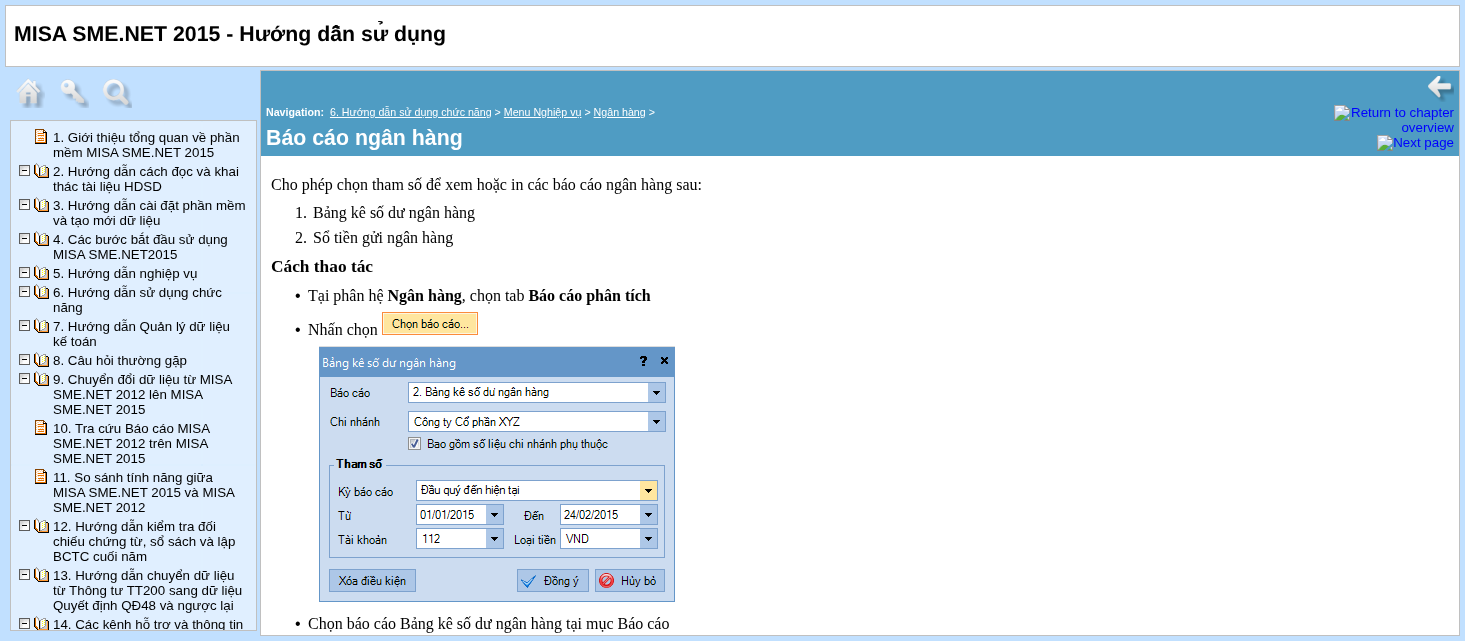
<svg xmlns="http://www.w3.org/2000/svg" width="1465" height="641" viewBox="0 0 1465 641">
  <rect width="100%" height="100%" fill="#c1e0ff"/>
  <rect x="5.5" y="5.5" width="1454" height="61" fill="#ffffff" stroke="#c0c0c0"/>
  <text x="14" y="41" font-family="Liberation Sans" font-size="21.3" font-weight="bold" fill="#000000">MISA SME.NET 2015 - Hướng dẫn sử dụng</text>
  <image x="16" y="78" width="29" height="30" href="img1.png"/>
  <image x="60" y="79" width="29" height="29" href="img2.png"/>
  <image x="102" y="79" width="30" height="29" href="img3.png"/>
  <rect x="260.5" y="70.5" width="1199" height="565" fill="none" stroke="#c0c0c0"/>
  <image x="261" y="71" width="1198" height="564" href="img4.png"/>
  <image x="11" y="121" width="245" height="509" href="img5.png"/>
  <rect x="10.5" y="120.5" width="246" height="510" fill="none" stroke="#c0c0c0"/>
  <image x="19" y="129" width="226" height="501" href="img6.png"/>
</svg>
